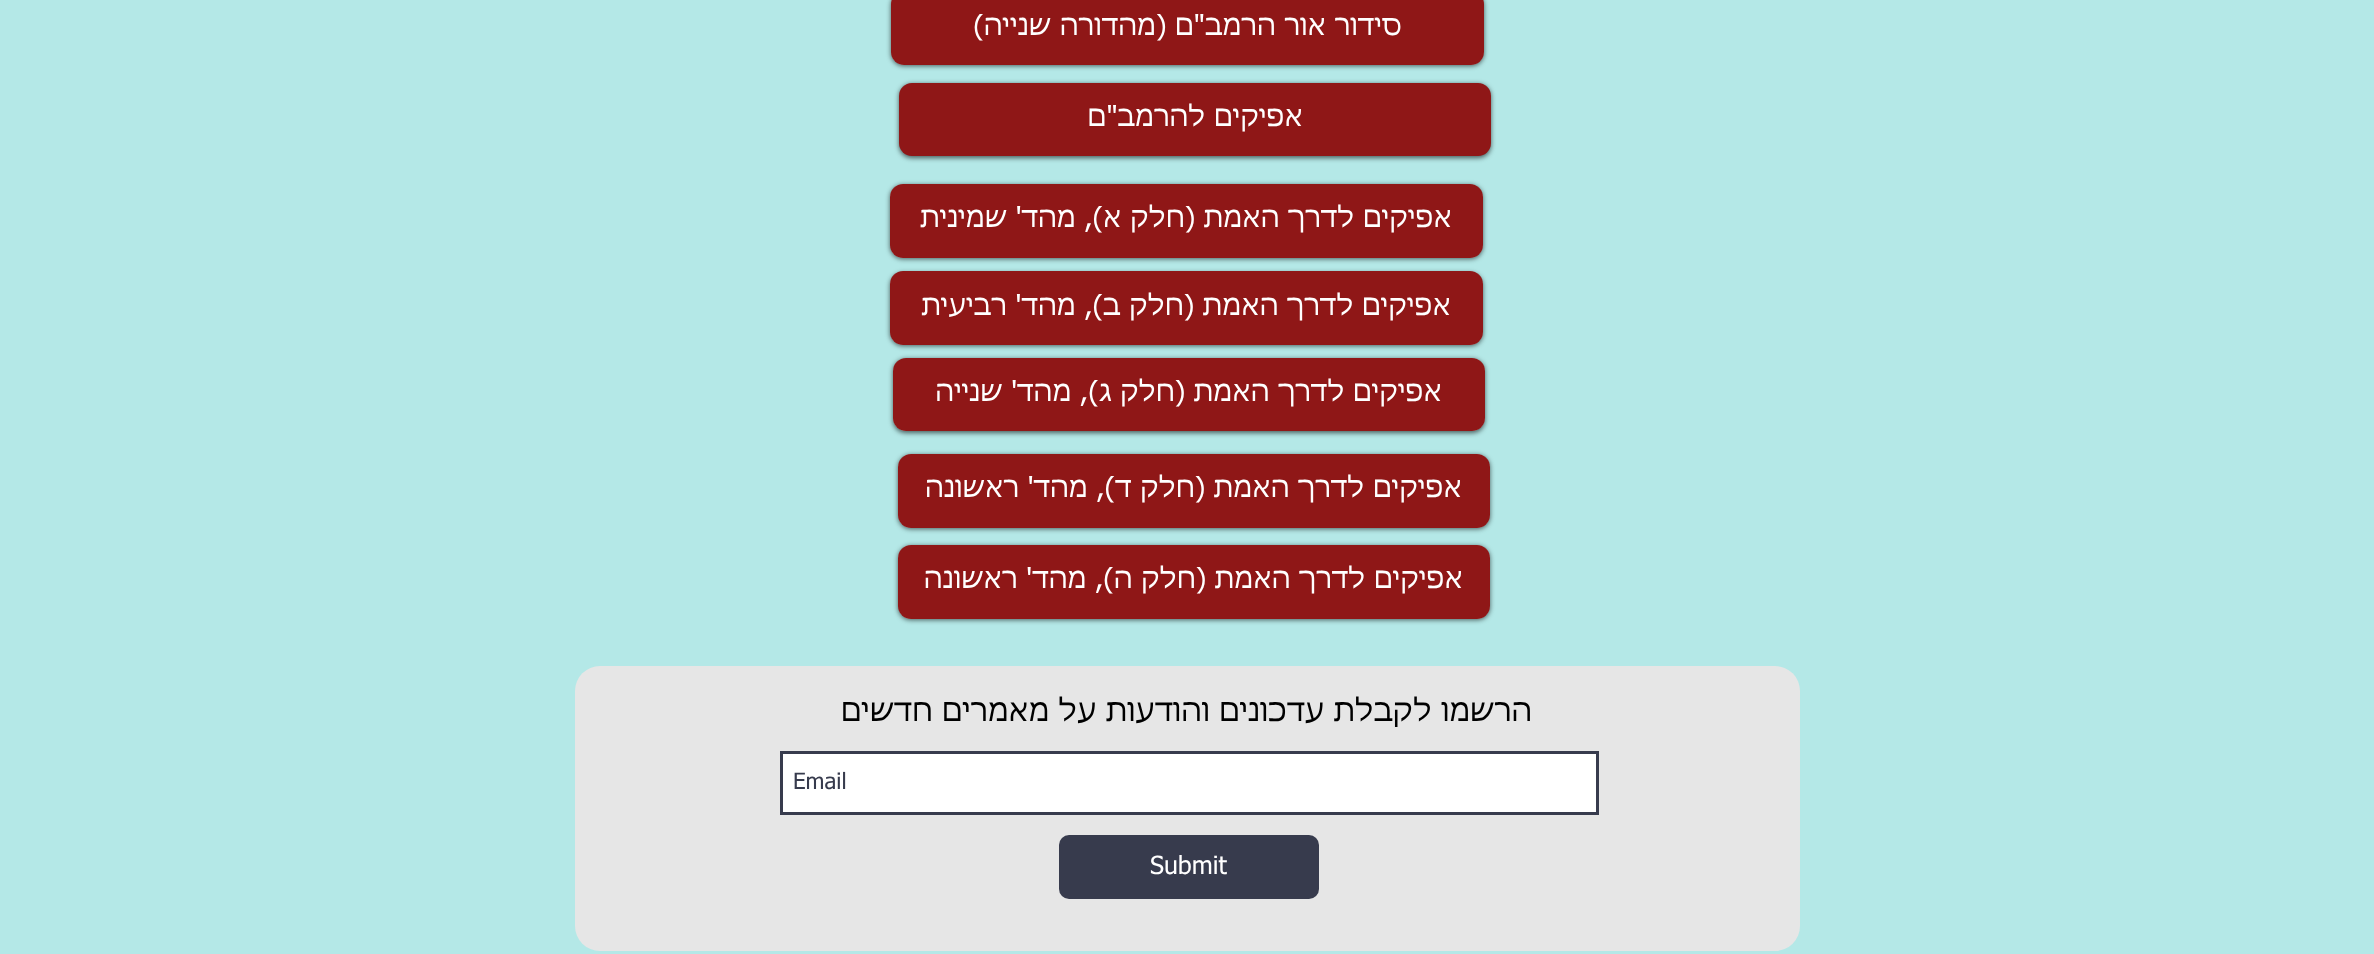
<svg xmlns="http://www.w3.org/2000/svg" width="2374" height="954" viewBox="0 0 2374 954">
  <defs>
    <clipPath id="clip1"><path d="M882 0H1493V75H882ZM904-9H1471C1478-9 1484-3 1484 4V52C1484 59 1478 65 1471 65H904C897 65 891 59 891 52V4C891-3 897-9 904-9Z" clip-rule="evenodd"/></clipPath>
    <filter id="blur1" x="-50%" y="-200%" width="200%" height="500%"><feGaussianBlur stdDeviation="2.5"/></filter>
    <clipPath id="clip2"><path d="M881 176H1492V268H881ZM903 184H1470C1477 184 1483 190 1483 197V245C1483 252 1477 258 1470 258H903C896 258 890 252 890 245V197C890 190 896 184 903 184Z" clip-rule="evenodd"/></clipPath>
    <clipPath id="clip3"><path d="M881 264H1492V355H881ZM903 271H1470C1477 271 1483 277 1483 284V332C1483 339 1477 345 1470 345H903C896 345 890 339 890 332V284C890 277 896 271 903 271Z" clip-rule="evenodd"/></clipPath>
    <clipPath id="clip4"><path d="M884 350H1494V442H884ZM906 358H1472C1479 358 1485 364 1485 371V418C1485 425 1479 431 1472 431H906C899 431 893 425 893 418V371C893 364 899 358 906 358Z" clip-rule="evenodd"/></clipPath>
    <clipPath id="clip5"><path d="M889 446H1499V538H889ZM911 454H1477C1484 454 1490 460 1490 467V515C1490 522 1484 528 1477 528H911C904 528 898 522 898 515V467C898 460 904 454 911 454Z" clip-rule="evenodd"/></clipPath>
    <clipPath id="clip6"><path d="M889 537H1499V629H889ZM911 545H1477C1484 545 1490 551 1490 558V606C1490 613 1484 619 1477 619H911C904 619 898 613 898 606V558C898 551 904 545 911 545Z" clip-rule="evenodd"/></clipPath>
  </defs>
  <rect width="100%" height="100%" fill="#b4e8e7"/>
  <g clip-path="url(#clip1)">
    <rect x="891" y="-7" width="593" height="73" rx="13" fill="#000000" fill-opacity="0.6" filter="url(#blur1)"/>
  </g>
  <rect x="891" y="-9" width="593" height="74" rx="13" fill="#8b0000" fill-opacity="0.9"/>
  <text x="1402" y="35" font-family="tahoma" font-size="27.5" direction="rtl" fill="#ffffff">סידור אור הרמב"ם (מהדורה שנייה)</text>
  <rect x="899" y="84" width="592" height="74" rx="13" fill="#000000" fill-opacity="0.6" filter="url(#blur1)"/>
  <rect x="899" y="83" width="592" height="73" rx="13" fill="#8f1717"/>
  <text x="1303" y="126" font-family="tahoma" font-size="27.5" direction="rtl" fill="#ffffff">אפיקים להרמב"ם</text>
  <g clip-path="url(#clip2)">
    <rect x="890" y="185" width="593" height="74" rx="13" fill="#000000" fill-opacity="0.6" filter="url(#blur1)"/>
  </g>
  <rect x="890" y="184" width="593" height="74" rx="13" fill="#8b0000" fill-opacity="0.9"/>
  <text x="1452" y="227" font-family="tahoma" font-size="27.5" direction="rtl" fill="#ffffff">אפיקים לדרך האמת (חלק א), מהד' שמינית</text>
  <g clip-path="url(#clip3)">
    <rect x="890" y="273" width="593" height="73" rx="13" fill="#000000" fill-opacity="0.6" filter="url(#blur1)"/>
  </g>
  <rect x="890" y="271" width="593" height="74" rx="13" fill="#8b0000" fill-opacity="0.9"/>
  <text x="1451" y="315" font-family="tahoma" font-size="27.5" direction="rtl" fill="#ffffff">אפיקים לדרך האמת (חלק ב), מהד' רביעית</text>
  <g clip-path="url(#clip4)">
    <rect x="893" y="359" width="592" height="74" rx="13" fill="#000000" fill-opacity="0.6" filter="url(#blur1)"/>
  </g>
  <rect x="893" y="358" width="592" height="73" rx="13" fill="#8b0000" fill-opacity="0.9"/>
  <text x="1442" y="401" font-family="tahoma" font-size="27.5" direction="rtl" fill="#ffffff">אפיקים לדרך האמת (חלק ג), מהד' שנייה</text>
  <g clip-path="url(#clip5)">
    <rect x="898" y="455" width="592" height="74" rx="13" fill="#000000" fill-opacity="0.6" filter="url(#blur1)"/>
  </g>
  <rect x="898" y="454" width="592" height="74" rx="13" fill="#8b0000" fill-opacity="0.9"/>
  <text x="1462" y="497" font-family="tahoma" font-size="27.5" direction="rtl" fill="#ffffff">אפיקים לדרך האמת (חלק ד), מהד' ראשונה</text>
  <g clip-path="url(#clip6)">
    <rect x="898" y="546" width="592" height="74" rx="13" fill="#000000" fill-opacity="0.6" filter="url(#blur1)"/>
  </g>
  <rect x="898" y="545" width="592" height="74" rx="13" fill="#8b0000" fill-opacity="0.9"/>
  <text x="1463" y="588" font-family="tahoma" font-size="27.5" direction="rtl" fill="#ffffff">אפיקים לדרך האמת (חלק ה), מהד' ראשונה</text>
  <rect x="575" y="666" width="1225" height="285" rx="25" fill="#e6e6e6"/>
  <text x="1532" y="721" font-family="tahoma" font-size="30" direction="rtl" fill="#000000">הרשמו לקבלת עדכונים והודעות על מאמרים חדשים</text>
  <rect x="781.5" y="752.5" width="816" height="61" fill="#ffffff" stroke="#373b4d" stroke-width="3"/>
  <text x="793" y="789" font-family="'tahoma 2'" font-size="22.5" fill="#373b4d">Email</text>
  <rect x="1059" y="835" width="260" height="64" rx="10" fill="#373b4d"/>
  <text x="1150" y="874" font-family="'tahoma 2'" font-size="25" fill="#ffffff">Submit</text>
</svg>
